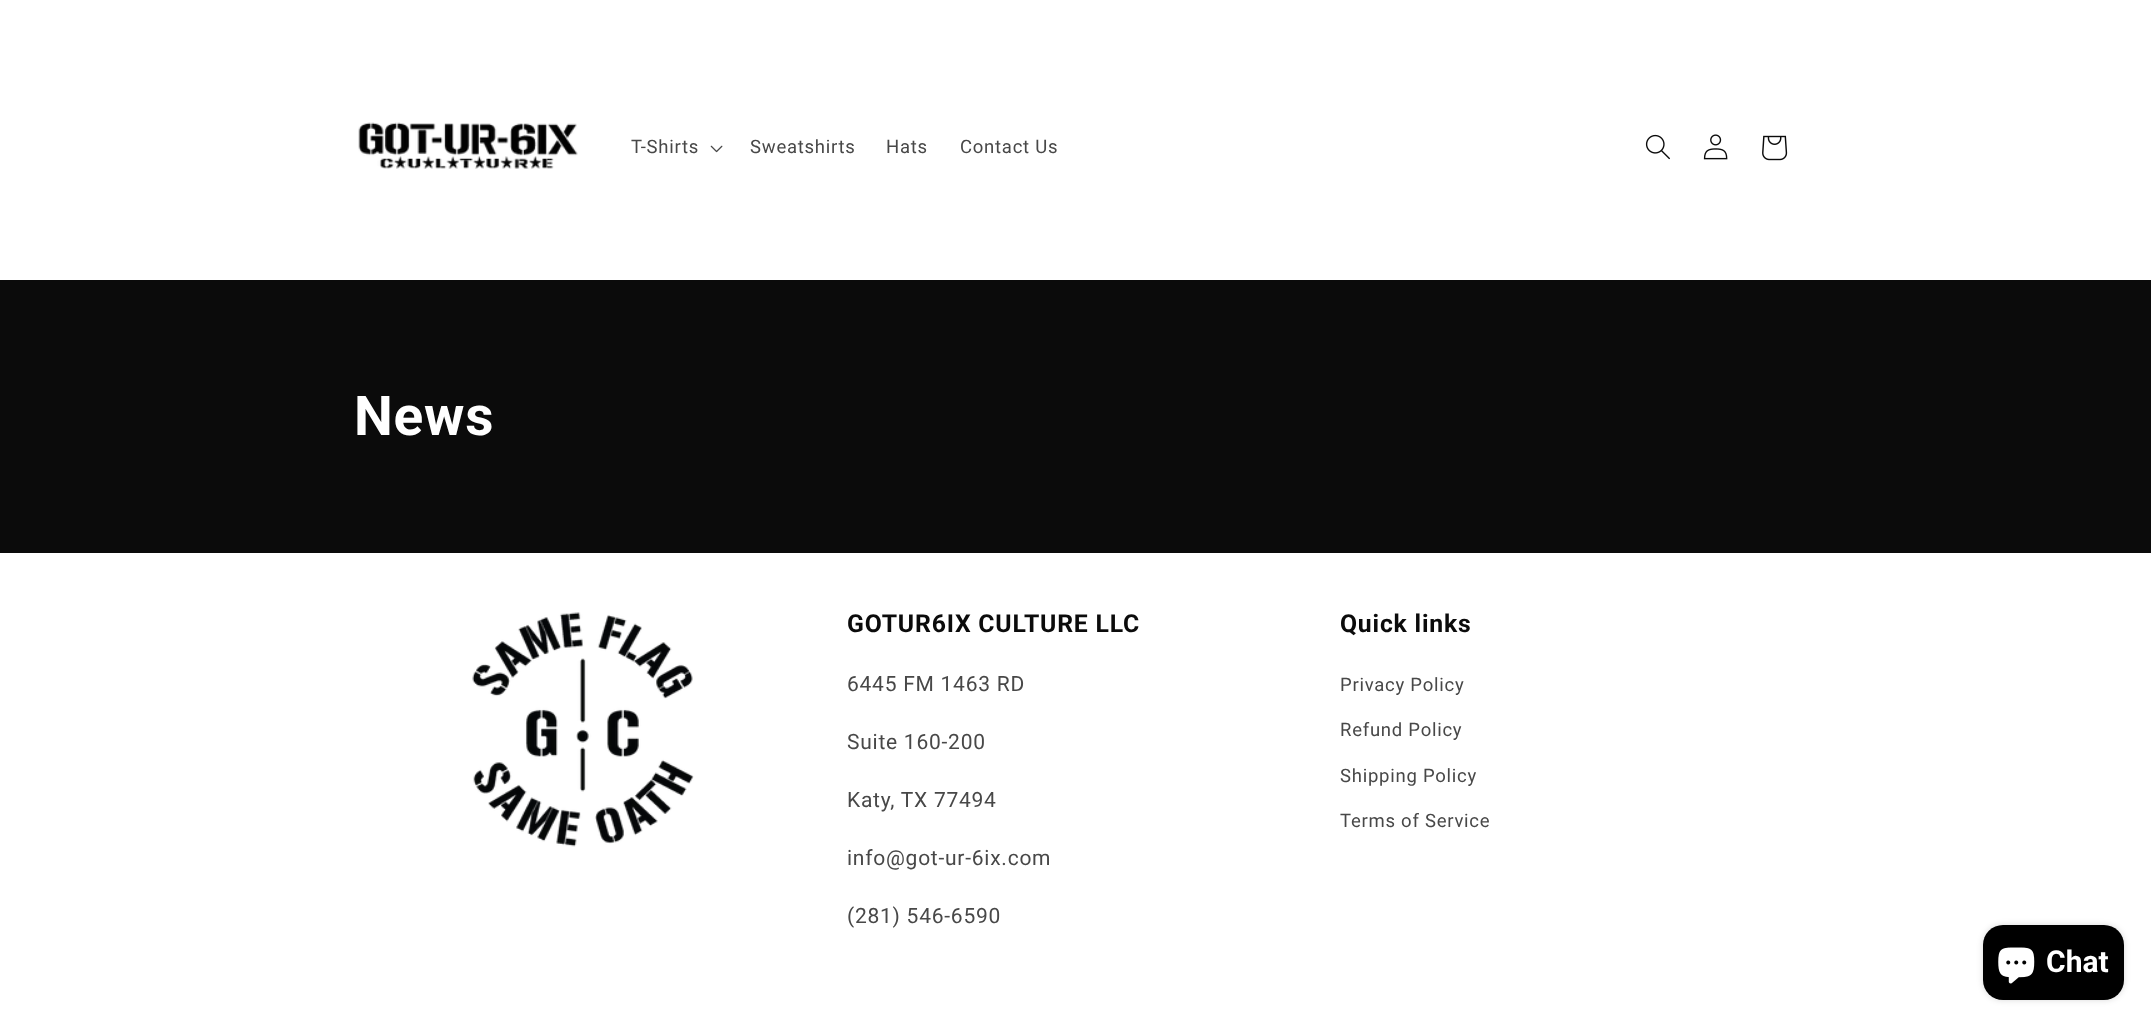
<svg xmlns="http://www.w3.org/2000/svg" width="2151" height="1026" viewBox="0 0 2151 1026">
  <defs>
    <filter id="blur1" x="-50%" y="-200%" width="200%" height="500%"><feGaussianBlur stdDeviation="3"/></filter>
  </defs>
  <rect width="100%" height="100%" fill="#0b0b0b"/>
  <rect x="0" y="0" width="2151" height="280" fill="#ffffff"/>
  <image x="358" y="122" width="220" height="47" href="img1.png"/>
  <text x="631" y="153" font-family="Roboto" font-size="18.5" letter-spacing="0.75" fill="#484848">T-Shirts</text>
  <image x="710" y="145" width="13" height="8" href="img2.png"/>
  <text x="750" y="153" font-family="Roboto" font-size="18.5" letter-spacing="0.75" fill="#484848">Sweatshirts</text>
  <text x="886" y="153" font-family="Roboto" font-size="18.5" letter-spacing="0.75" fill="#484848">Hats</text>
  <text x="960" y="153" font-family="Roboto" font-size="18.5" letter-spacing="0.75" fill="#484848">Contact Us</text>
  <image x="1645" y="134" width="25" height="26" href="img3.png"/>
  <image x="1703" y="134" width="25" height="26" href="img4.png"/>
  <image x="1762" y="135" width="26" height="26" href="img5.png"/>
  <text x="354" y="435" font-family="Roboto" font-size="55" font-weight="bold" letter-spacing="0.8" fill="#ffffff">News</text>
  <rect x="0" y="553" width="2151" height="473" fill="#ffffff"/>
  <image x="472" y="612" width="222" height="235" href="img6.png"/>
  <text x="847" y="632" font-family="Roboto" font-size="24.75" font-weight="bold" letter-spacing="0.8" fill="#0b0b0b">GOTUR6IX CULTURE LLC</text>
  <text x="847" y="691" font-family="Roboto" font-size="21" letter-spacing="0.75" fill="#484848">6445 FM 1463 RD</text>
  <text x="847" y="749" font-family="Roboto" font-size="21" letter-spacing="0.75" fill="#484848">Suite 160-200</text>
  <text x="847" y="807" font-family="Roboto" font-size="21" letter-spacing="0.75" fill="#484848">Katy, TX 77494</text>
  <text x="847" y="865" font-family="Roboto" font-size="21" letter-spacing="0.75" fill="#484848">info@got-ur-6ix.com</text>
  <text x="847" y="923" font-family="Roboto" font-size="21" letter-spacing="0.75" fill="#484848">(281) 546-6590</text>
  <text x="1340" y="632" font-family="Roboto" font-size="24.75" font-weight="bold" letter-spacing="0.8" fill="#0b0b0b">Quick links</text>
  <text x="1340" y="691" font-family="Roboto" font-size="18.5" letter-spacing="0.75" fill="#484848">Privacy Policy</text>
  <text x="1340" y="736" font-family="Roboto" font-size="18.5" letter-spacing="0.75" fill="#484848">Refund Policy</text>
  <text x="1340" y="782" font-family="Roboto" font-size="18.5" letter-spacing="0.75" fill="#484848">Shipping Policy</text>
  <text x="1340" y="827" font-family="Roboto" font-size="18.5" letter-spacing="0.75" fill="#484848">Terms of Service</text>
  <rect x="1983" y="925" width="141" height="75" rx="20" fill="#000000" fill-opacity="0.15" filter="url(#blur1)"/>
  <rect x="1983" y="925" width="141" height="75" rx="20" fill="#000000"/>
  <image x="1998" y="947" width="37" height="37" href="img7.png"/>
  <text x="2046" y="972" font-family="Roboto" font-size="30" font-weight="bold" fill="#ffffff">Chat</text>
</svg>
